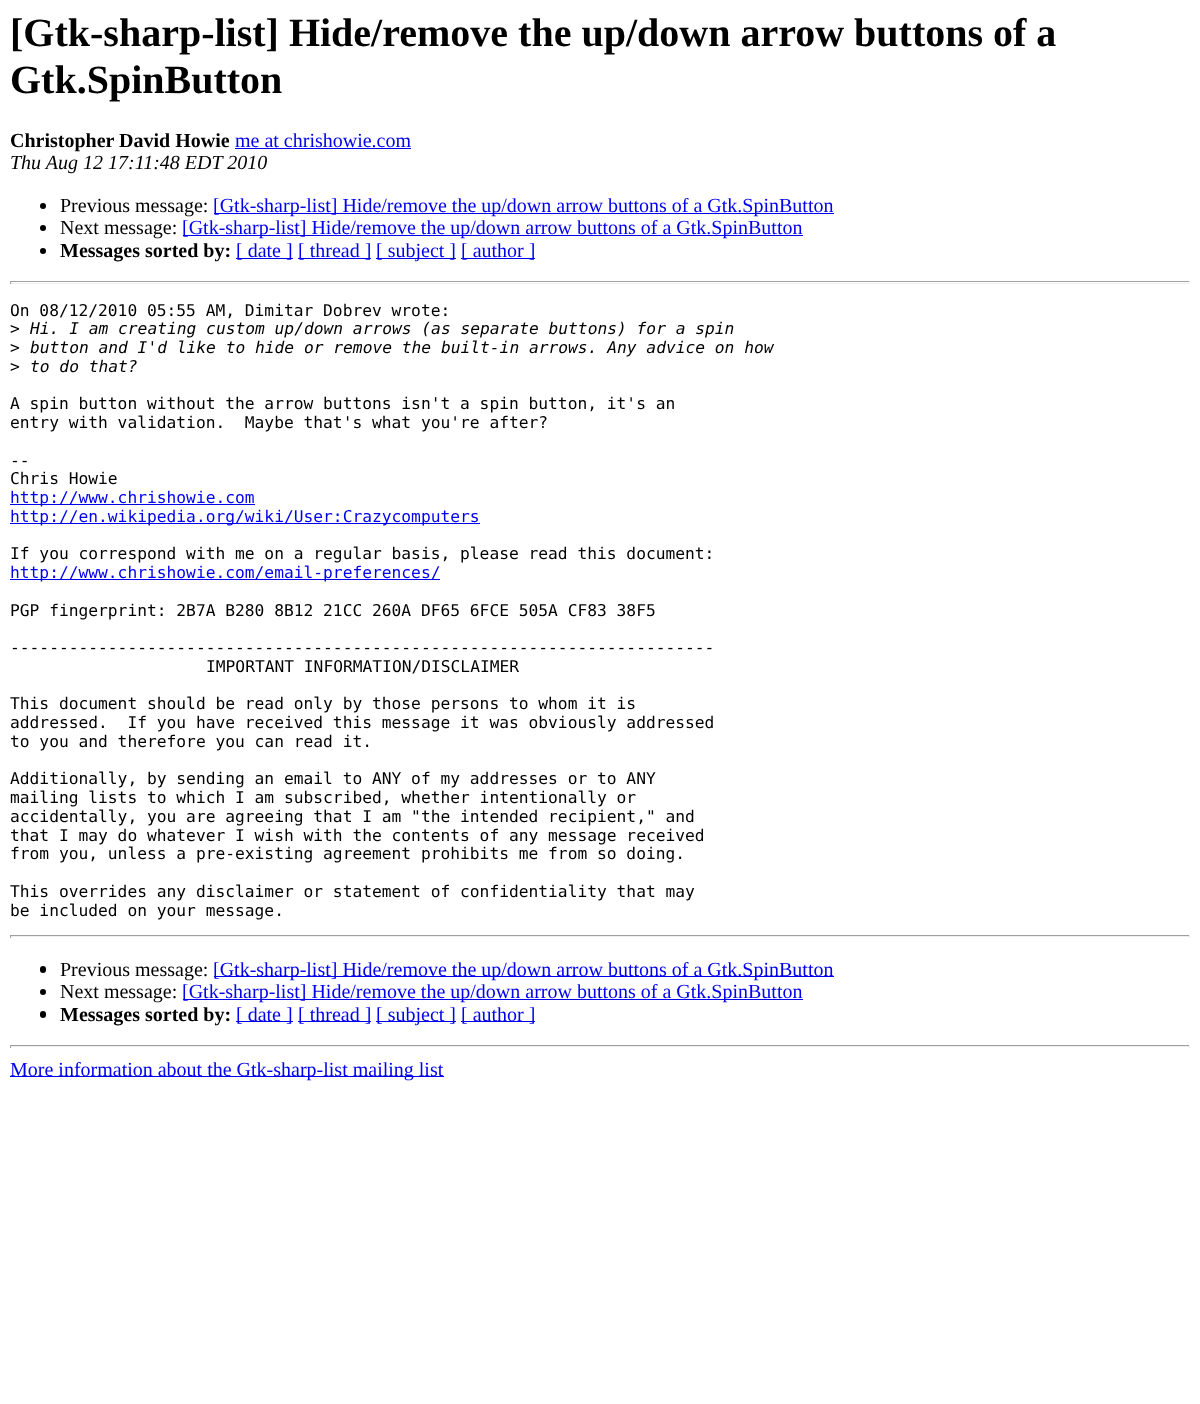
<svg xmlns="http://www.w3.org/2000/svg" width="1200" height="1404" viewBox="0 0 1200 1404">
  <rect width="100%" height="100%" fill="#ffffff"/>
  <text x="10" y="46" font-family="Liberation Serif" font-size="40" font-weight="bold" fill="#000000">[Gtk-sharp-list] Hide/remove the up/down arrow buttons of a</text>
  <text x="10" y="93" font-family="Liberation Serif" font-size="40" font-weight="bold" fill="#000000">Gtk.SpinButton</text>
  <text x="10" y="147" font-family="Liberation Serif" font-size="20" font-weight="bold" fill="#000000">Christopher David Howie</text>
  <text x="235" y="147" font-family="Liberation Serif" font-size="20" fill="#0000ee">me at chrishowie.com</text>
  <rect x="235" y="148" width="176" height="1" fill="#0000ee"/>
  <text x="10" y="169" font-family="Liberation Serif" font-size="20" font-style="italic" fill="#000000">Thu Aug 12 17:11:48 EDT 2010</text>
  <circle cx="43" cy="206" r="3" fill="#000000"/>
  <text x="60" y="212" font-family="Liberation Serif" font-size="20" fill="#000000">Previous message:</text>
  <rect x="214" y="213" width="620" height="1" fill="#0000ee"/>
  <text x="213" y="212" font-family="Liberation Serif" font-size="20" fill="#0000ee">[Gtk-sharp-list] Hide/remove the up/down arrow buttons of a Gtk.SpinButton</text>
  <circle cx="43" cy="228" r="3" fill="#000000"/>
  <text x="60" y="234" font-family="Liberation Serif" font-size="20" fill="#000000">Next message:</text>
  <rect x="183" y="235" width="620" height="1" fill="#0000ee"/>
  <text x="182" y="234" font-family="Liberation Serif" font-size="20" fill="#0000ee">[Gtk-sharp-list] Hide/remove the up/down arrow buttons of a Gtk.SpinButton</text>
  <circle cx="43" cy="251" r="3" fill="#000000"/>
  <text x="60" y="257" font-family="Liberation Serif" font-size="20" font-weight="bold" fill="#000000">Messages sorted by:</text>
  <rect x="236" y="258" width="57" height="1" fill="#0000ee"/>
  <text x="236" y="257" font-family="Liberation Serif" font-size="20" fill="#0000ee">[ date ]</text>
  <rect x="298" y="258" width="73" height="1" fill="#0000ee"/>
  <text x="298" y="257" font-family="Liberation Serif" font-size="20" fill="#0000ee">[ thread ]</text>
  <rect x="376" y="258" width="80" height="1" fill="#0000ee"/>
  <text x="376" y="257" font-family="Liberation Serif" font-size="20" fill="#0000ee">[ subject ]</text>
  <rect x="461" y="258" width="74" height="1" fill="#0000ee"/>
  <text x="461" y="257" font-family="Liberation Serif" font-size="20" fill="#0000ee">[ author ]</text>
  <rect x="10" y="281" width="1180" height="1" fill="#9f9f9f"/>
  <rect x="1189" y="281" width="1" height="3" fill="#eeeeee"/>
  <rect x="10" y="283" width="1180" height="1" fill="#eeeeee"/>
  <rect x="10" y="281" width="1" height="3" fill="#9f9f9f"/>
  <text x="10" y="316" font-family="DejaVu Sans Mono" font-size="16.25" fill="#000000">On 08/12/2010 05:55 AM, Dimitar Dobrev wrote:</text>
  <text x="10" y="334" font-family="DejaVu Sans Mono" font-size="16.25" fill="#000000">&gt;</text>
  <text x="30" y="334" font-family="DejaVu Sans Mono" font-size="16.25" font-style="italic" fill="#000000">Hi. I am creating custom up/down arrows (as separate buttons) for a spin</text>
  <text x="10" y="353" font-family="DejaVu Sans Mono" font-size="16.25" fill="#000000">&gt;</text>
  <text x="30" y="353" font-family="DejaVu Sans Mono" font-size="16.25" font-style="italic" fill="#000000">button and I'd like to hide or remove the built-in arrows. Any advice on how</text>
  <text x="10" y="372" font-family="DejaVu Sans Mono" font-size="16.25" fill="#000000">&gt;</text>
  <text x="30" y="372" font-family="DejaVu Sans Mono" font-size="16.25" font-style="italic" fill="#000000">to do that?</text>
  <text x="10" y="409" font-family="DejaVu Sans Mono" font-size="16.25" fill="#000000">A spin button without the arrow buttons isn't a spin button, it's an</text>
  <text x="10" y="428" font-family="DejaVu Sans Mono" font-size="16.25" fill="#000000" xml:space="preserve">entry with validation.  Maybe that's what you're after?</text>
  <text x="10" y="466" font-family="DejaVu Sans Mono" font-size="16.25" fill="#000000">--</text>
  <text x="10" y="484" font-family="DejaVu Sans Mono" font-size="16.25" fill="#000000">Chris Howie</text>
  <rect x="10" y="504" width="245" height="1" fill="#0000ee"/>
  <text x="10" y="503" font-family="DejaVu Sans Mono" font-size="16.25" fill="#0000ee">http://www.chrishowie.com</text>
  <rect x="10" y="523" width="470" height="1" fill="#0000ee"/>
  <text x="10" y="522" font-family="DejaVu Sans Mono" font-size="16.25" fill="#0000ee">http://en.wikipedia.org/wiki/User:Crazycomputers</text>
  <text x="10" y="559" font-family="DejaVu Sans Mono" font-size="16.25" fill="#000000">If you correspond with me on a regular basis, please read this document:</text>
  <rect x="10" y="579" width="430" height="1" fill="#0000ee"/>
  <text x="10" y="578" font-family="DejaVu Sans Mono" font-size="16.25" fill="#0000ee">http://www.chrishowie.com/email-preferences/</text>
  <text x="10" y="616" font-family="DejaVu Sans Mono" font-size="16.25" fill="#000000">PGP fingerprint: 2B7A B280 8B12 21CC 260A DF65 6FCE 505A CF83 38F5</text>
  <text x="10" y="653" font-family="DejaVu Sans Mono" font-size="16.25" fill="#000000">------------------------------------------------------------------------</text>
  <text x="206" y="672" font-family="DejaVu Sans Mono" font-size="16.25" fill="#000000">IMPORTANT INFORMATION/DISCLAIMER</text>
  <text x="10" y="709" font-family="DejaVu Sans Mono" font-size="16.25" fill="#000000">This document should be read only by those persons to whom it is</text>
  <text x="10" y="728" font-family="DejaVu Sans Mono" font-size="16.25" fill="#000000" xml:space="preserve">addressed.  If you have received this message it was obviously addressed</text>
  <text x="10" y="747" font-family="DejaVu Sans Mono" font-size="16.25" fill="#000000">to you and therefore you can read it.</text>
  <text x="10" y="784" font-family="DejaVu Sans Mono" font-size="16.25" fill="#000000">Additionally, by sending an email to ANY of my addresses or to ANY</text>
  <text x="10" y="803" font-family="DejaVu Sans Mono" font-size="16.25" fill="#000000">mailing lists to which I am subscribed, whether intentionally or</text>
  <text x="10" y="822" font-family="DejaVu Sans Mono" font-size="16.25" fill="#000000">accidentally, you are agreeing that I am "the intended recipient," and</text>
  <text x="10" y="841" font-family="DejaVu Sans Mono" font-size="16.25" fill="#000000">that I may do whatever I wish with the contents of any message received</text>
  <text x="10" y="859" font-family="DejaVu Sans Mono" font-size="16.25" fill="#000000">from you, unless a pre-existing agreement prohibits me from so doing.</text>
  <text x="10" y="897" font-family="DejaVu Sans Mono" font-size="16.25" fill="#000000">This overrides any disclaimer or statement of confidentiality that may</text>
  <text x="10" y="916" font-family="DejaVu Sans Mono" font-size="16.25" fill="#000000">be included on your message.</text>
  <rect x="10" y="935" width="1180" height="1" fill="#9f9f9f"/>
  <rect x="1189" y="935" width="1" height="3" fill="#eeeeee"/>
  <rect x="10" y="936" width="1180" height="1" fill="#eeeeee"/>
  <rect x="10" y="935" width="1" height="3" fill="#9f9f9f"/>
  <rect x="40" y="966" width="6" height="7" rx="3" fill="#000000"/>
  <text x="60" y="976" font-family="Liberation Serif" font-size="20" fill="#000000">Previous message:</text>
  <rect x="214" y="976" width="620" height="1" fill="#0000ee"/>
  <text x="213" y="976" font-family="Liberation Serif" font-size="20" fill="#0000ee">[Gtk-sharp-list] Hide/remove the up/down arrow buttons of a Gtk.SpinButton</text>
  <circle cx="43" cy="992" r="3" fill="#000000"/>
  <text x="60" y="998" font-family="Liberation Serif" font-size="20" fill="#000000">Next message:</text>
  <rect x="183" y="999" width="620" height="1" fill="#0000ee"/>
  <text x="182" y="998" font-family="Liberation Serif" font-size="20" fill="#0000ee">[Gtk-sharp-list] Hide/remove the up/down arrow buttons of a Gtk.SpinButton</text>
  <rect x="40" y="1011" width="6" height="7" rx="3" fill="#000000"/>
  <text x="60" y="1021" font-family="Liberation Serif" font-size="20" font-weight="bold" fill="#000000">Messages sorted by:</text>
  <rect x="236" y="1021" width="57" height="1" fill="#0000ee"/>
  <text x="236" y="1021" font-family="Liberation Serif" font-size="20" fill="#0000ee">[ date ]</text>
  <rect x="298" y="1021" width="73" height="1" fill="#0000ee"/>
  <text x="298" y="1021" font-family="Liberation Serif" font-size="20" fill="#0000ee">[ thread ]</text>
  <rect x="376" y="1021" width="80" height="1" fill="#0000ee"/>
  <text x="376" y="1021" font-family="Liberation Serif" font-size="20" fill="#0000ee">[ subject ]</text>
  <rect x="461" y="1021" width="74" height="1" fill="#0000ee"/>
  <text x="461" y="1021" font-family="Liberation Serif" font-size="20" fill="#0000ee">[ author ]</text>
  <rect x="10" y="1045" width="1180" height="1" fill="#9f9f9f"/>
  <rect x="1189" y="1045" width="1" height="3" fill="#eeeeee"/>
  <rect x="10" y="1046" width="1180" height="1" fill="#eeeeee"/>
  <rect x="10" y="1045" width="1" height="3" fill="#9f9f9f"/>
  <rect x="10" y="1076" width="434" height="1" fill="#0000ee"/>
  <text x="10" y="1076" font-family="Liberation Serif" font-size="20" fill="#0000ee">More information about the Gtk-sharp-list mailing list</text>
</svg>
